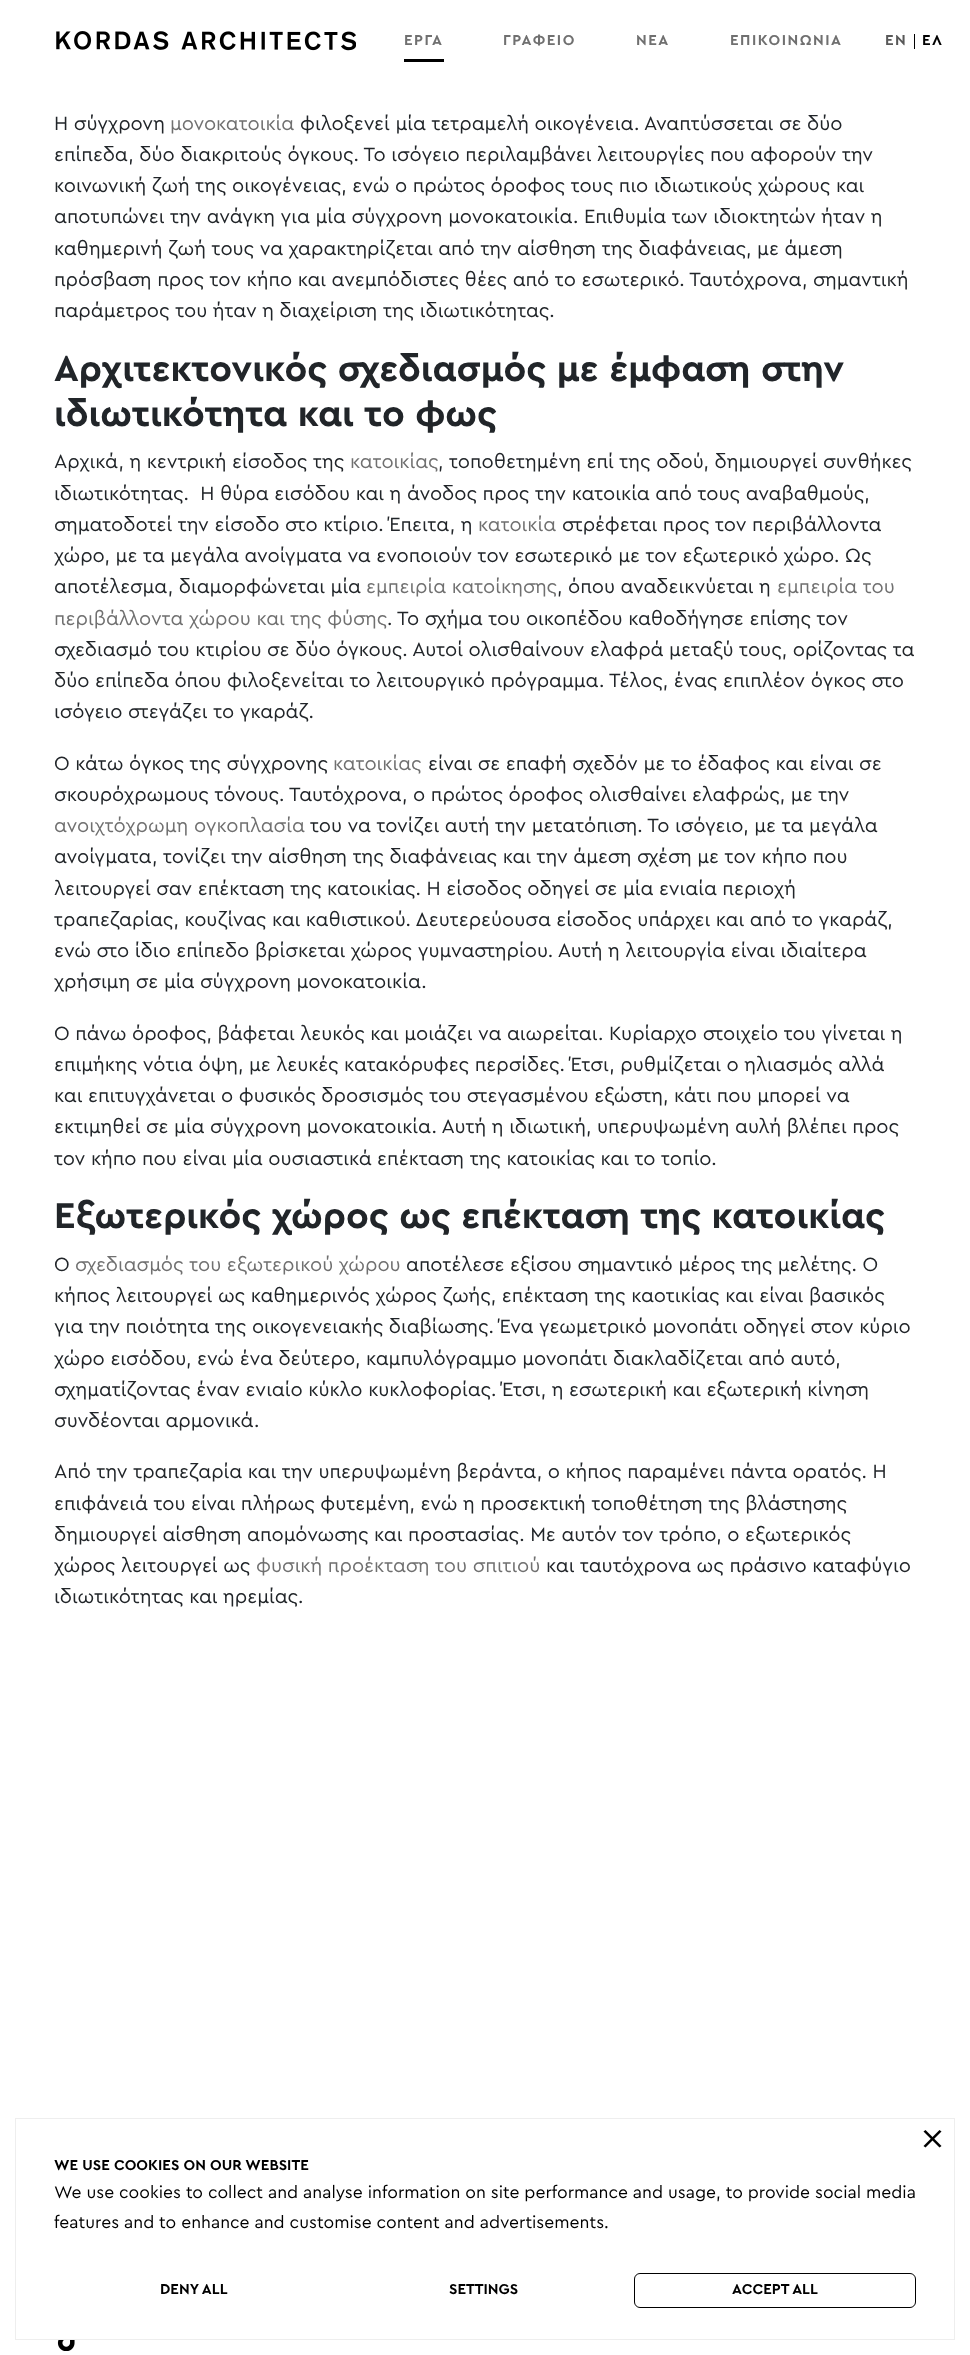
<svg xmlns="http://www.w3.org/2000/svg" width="970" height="2355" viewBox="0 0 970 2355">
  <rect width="100%" height="100%" fill="#ffffff"/>
  <image x="56" y="31" width="300" height="20" href="img1.png"/>
  <text x="404" y="45" font-family="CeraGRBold" font-size="15" font-weight="bold" letter-spacing="1.5" fill="#707070">ΕΡΓΑ</text>
  <rect x="404" y="59" width="40" height="3" fill="#000000"/>
  <text x="503" y="45" font-family="CeraGRBold" font-size="15" font-weight="bold" letter-spacing="1.5" fill="#707070">ΓΡΑΦΕΙΟ</text>
  <text x="636" y="45" font-family="CeraGRBold" font-size="15" font-weight="bold" letter-spacing="1.5" fill="#707070">ΝΕΑ</text>
  <text x="730" y="45" font-family="CeraGRBold" font-size="15" font-weight="bold" letter-spacing="1.5" fill="#707070">ΕΠΙΚΟΙΝΩΝΙΑ</text>
  <text x="885" y="45" font-family="CeraGRBold" font-size="15" font-weight="bold" letter-spacing="1.5" fill="#595959">EN</text>
  <rect x="914" y="34" width="1" height="15" fill="#000000"/>
  <text x="922" y="45" font-family="CeraGRBold" font-size="15" font-weight="bold" letter-spacing="1.5" fill="#000000">ΕΛ</text>
  <text x="54" y="130" font-family="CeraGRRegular" font-size="20" fill="#212529">Η σύγχρονη</text>
  <text x="170" y="130" font-family="CeraGRRegular" font-size="20" fill="#707070">μονοκατοικία</text>
  <text x="300" y="130" font-family="CeraGRRegular" font-size="20" fill="#212529">φιλοξενεί μία τετραμελή οικογένεια. Αναπτύσσεται σε δύο</text>
  <text x="54" y="161" font-family="CeraGRRegular" font-size="20" fill="#212529">επίπεδα, δύο διακριτούς όγκους. Το ισόγειο περιλαμβάνει λειτουργίες που αφορούν την</text>
  <text x="54" y="192" font-family="CeraGRRegular" font-size="20" fill="#212529">κοινωνική ζωή της οικογένειας, ενώ ο πρώτος όροφος τους πιο ιδιωτικούς χώρους και</text>
  <text x="54" y="223" font-family="CeraGRRegular" font-size="20" fill="#212529">αποτυπώνει την ανάγκη για μία σύγχρονη μονοκατοικία. Επιθυμία των ιδιοκτητών ήταν η</text>
  <text x="54" y="255" font-family="CeraGRRegular" font-size="20" fill="#212529">καθημερινή ζωή τους να χαρακτηρίζεται από την αίσθηση της διαφάνειας, με άμεση</text>
  <text x="54" y="286" font-family="CeraGRRegular" font-size="20" fill="#212529">πρόσβαση προς τον κήπο και ανεμπόδιστες θέες από το εσωτερικό. Ταυτόχρονα, σημαντική</text>
  <text x="54" y="317" font-family="CeraGRRegular" font-size="20" fill="#212529">παράμετρος του ήταν η διαχείριση της ιδιωτικότητας.</text>
  <text x="54" y="381" font-family="CeraGRBold" font-size="37.5" font-weight="bold" fill="#212529">Αρχιτεκτονικός σχεδιασμός με έμφαση στην</text>
  <text x="54" y="426" font-family="CeraGRBold" font-size="37.5" font-weight="bold" fill="#212529">ιδιωτικότητα και το φως</text>
  <text x="54" y="468" font-family="CeraGRRegular" font-size="20" fill="#212529">Αρχικά, η κεντρική είσοδος της</text>
  <text x="350" y="468" font-family="CeraGRRegular" font-size="20" fill="#707070">κατοικίας</text>
  <text x="438" y="468" font-family="CeraGRRegular" font-size="20" fill="#212529">, τοποθετημένη επί της οδού, δημιουργεί συνθήκες</text>
  <text x="54" y="500" font-family="CeraGRRegular" font-size="20" fill="#212529" xml:space="preserve">ιδιωτικότητας.  Η θύρα εισόδου και η άνοδος προς την κατοικία από τους αναβαθμούς,</text>
  <text x="54" y="531" font-family="CeraGRRegular" font-size="20" fill="#212529">σηματοδοτεί την είσοδο στο κτίριο. Έπειτα, η</text>
  <text x="478" y="531" font-family="CeraGRRegular" font-size="20" fill="#707070">κατοικία</text>
  <text x="562" y="531" font-family="CeraGRRegular" font-size="20" fill="#212529">στρέφεται προς τον περιβάλλοντα</text>
  <text x="54" y="562" font-family="CeraGRRegular" font-size="20" fill="#212529">χώρο, με τα μεγάλα ανοίγματα να ενοποιούν τον εσωτερικό με τον εξωτερικό χώρο. Ως</text>
  <text x="54" y="593" font-family="CeraGRRegular" font-size="20" fill="#212529">αποτέλεσμα, διαμορφώνεται μία</text>
  <text x="366" y="593" font-family="CeraGRRegular" font-size="20" fill="#707070">εμπειρία κατοίκησης</text>
  <text x="557" y="593" font-family="CeraGRRegular" font-size="20" fill="#212529">, όπου αναδεικνύεται η</text>
  <text x="777" y="593" font-family="CeraGRRegular" font-size="20" fill="#707070">εμπειρία του</text>
  <text x="54" y="625" font-family="CeraGRRegular" font-size="20" fill="#707070">περιβάλλοντα χώρου και της φύσης</text>
  <text x="387" y="625" font-family="CeraGRRegular" font-size="20" fill="#212529">. Το σχήμα του οικοπέδου καθοδήγησε επίσης τον</text>
  <text x="54" y="656" font-family="CeraGRRegular" font-size="20" fill="#212529">σχεδιασμό του κτιρίου σε δύο όγκους. Αυτοί ολισθαίνουν ελαφρά μεταξύ τους, ορίζοντας τα</text>
  <text x="54" y="687" font-family="CeraGRRegular" font-size="20" fill="#212529">δύο επίπεδα όπου φιλοξενείται το λειτουργικό πρόγραμμα. Τέλος, ένας επιπλέον όγκος στο</text>
  <text x="54" y="718" font-family="CeraGRRegular" font-size="20" fill="#212529">ισόγειο στεγάζει το γκαράζ.</text>
  <text x="54" y="770" font-family="CeraGRRegular" font-size="20" fill="#212529">Ο κάτω όγκος της σύγχρονης</text>
  <text x="333" y="770" font-family="CeraGRRegular" font-size="20" fill="#707070">κατοικίας</text>
  <text x="428" y="770" font-family="CeraGRRegular" font-size="20" fill="#212529">είναι σε επαφή σχεδόν με το έδαφος και είναι σε</text>
  <text x="54" y="801" font-family="CeraGRRegular" font-size="20" fill="#212529">σκουρόχρωμους τόνους. Ταυτόχρονα, ο πρώτος όροφος ολισθαίνει ελαφρώς, με την</text>
  <text x="54" y="832" font-family="CeraGRRegular" font-size="20" fill="#707070">ανοιχτόχρωμη ογκοπλασία</text>
  <text x="310" y="832" font-family="CeraGRRegular" font-size="20" fill="#212529">του να τονίζει αυτή την μετατόπιση. Το ισόγειο, με τα μεγάλα</text>
  <text x="54" y="863" font-family="CeraGRRegular" font-size="20" fill="#212529">ανοίγματα, τονίζει την αίσθηση της διαφάνειας και την άμεση σχέση με τον κήπο που</text>
  <text x="54" y="895" font-family="CeraGRRegular" font-size="20" fill="#212529">λειτουργεί σαν επέκταση της κατοικίας. Η είσοδος οδηγεί σε μία ενιαία περιοχή</text>
  <text x="54" y="926" font-family="CeraGRRegular" font-size="20" fill="#212529">τραπεζαρίας, κουζίνας και καθιστικού. Δευτερεύουσα είσοδος υπάρχει και από το γκαράζ,</text>
  <text x="54" y="957" font-family="CeraGRRegular" font-size="20" fill="#212529">ενώ στο ίδιο επίπεδο βρίσκεται χώρος γυμναστηρίου. Αυτή η λειτουργία είναι ιδιαίτερα</text>
  <text x="54" y="988" font-family="CeraGRRegular" font-size="20" fill="#212529">χρήσιμη σε μία σύγχρονη μονοκατοικία.</text>
  <text x="54" y="1040" font-family="CeraGRRegular" font-size="20" fill="#212529">Ο πάνω όροφος, βάφεται λευκός και μοιάζει να αιωρείται. Κυρίαρχο στοιχείο του γίνεται η</text>
  <text x="54" y="1071" font-family="CeraGRRegular" font-size="20" fill="#212529">επιμήκης νότια όψη, με λευκές κατακόρυφες περσίδες. Έτσι, ρυθμίζεται ο ηλιασμός αλλά</text>
  <text x="54" y="1102" font-family="CeraGRRegular" font-size="20" fill="#212529">και επιτυγχάνεται ο φυσικός δροσισμός του στεγασμένου εξώστη, κάτι που μπορεί να</text>
  <text x="54" y="1133" font-family="CeraGRRegular" font-size="20" fill="#212529">εκτιμηθεί σε μία σύγχρονη μονοκατοικία. Αυτή η ιδιωτική, υπερυψωμένη αυλή βλέπει προς</text>
  <text x="54" y="1165" font-family="CeraGRRegular" font-size="20" fill="#212529">τον κήπο που είναι μία ουσιαστικά επέκταση της κατοικίας και το τοπίο.</text>
  <text x="54" y="1228" font-family="CeraGRBold" font-size="37.5" font-weight="bold" fill="#212529">Εξωτερικός χώρος ως επέκταση της κατοικίας</text>
  <text x="54" y="1271" font-family="CeraGRRegular" font-size="20" fill="#212529">Ο</text>
  <text x="75" y="1271" font-family="CeraGRRegular" font-size="20" fill="#707070">σχεδιασμός του εξωτερικού χώρου</text>
  <text x="406" y="1271" font-family="CeraGRRegular" font-size="20" fill="#212529">αποτέλεσε εξίσου σημαντικό μέρος της μελέτης. Ο</text>
  <text x="54" y="1302" font-family="CeraGRRegular" font-size="20" fill="#212529">κήπος λειτουργεί ως καθημερινός χώρος ζωής, επέκταση της καοτικίας και είναι βασικός</text>
  <text x="54" y="1333" font-family="CeraGRRegular" font-size="20" fill="#212529">για την ποιότητα της οικογενειακής διαβίωσης. Ένα γεωμετρικό μονοπάτι οδηγεί στον κύριο</text>
  <text x="54" y="1365" font-family="CeraGRRegular" font-size="20" fill="#212529">χώρο εισόδου, ενώ ένα δεύτερο, καμπυλόγραμμο μονοπάτι διακλαδίζεται από αυτό,</text>
  <text x="54" y="1396" font-family="CeraGRRegular" font-size="20" fill="#212529">σχηματίζοντας έναν ενιαίο κύκλο κυκλοφορίας. Έτσι, η εσωτερική και εξωτερική κίνηση</text>
  <text x="54" y="1427" font-family="CeraGRRegular" font-size="20" fill="#212529">συνδέονται αρμονικά.</text>
  <text x="54" y="1478" font-family="CeraGRRegular" font-size="20" fill="#212529">Από την τραπεζαρία και την υπερυψωμένη βεράντα, ο κήπος παραμένει πάντα ορατός. Η</text>
  <text x="54" y="1510" font-family="CeraGRRegular" font-size="20" fill="#212529">επιφάνειά του είναι πλήρως φυτεμένη, ενώ η προσεκτική τοποθέτηση της βλάστησης</text>
  <text x="54" y="1541" font-family="CeraGRRegular" font-size="20" fill="#212529">δημιουργεί αίσθηση απομόνωσης και προστασίας. Με αυτόν τον τρόπο, ο εξωτερικός</text>
  <text x="54" y="1572" font-family="CeraGRRegular" font-size="20" fill="#212529">χώρος λειτουργεί ως</text>
  <text x="256" y="1572" font-family="CeraGRRegular" font-size="20" fill="#707070">φυσική προέκταση του σπιτιού</text>
  <text x="546" y="1572" font-family="CeraGRRegular" font-size="20" fill="#212529">και ταυτόχρονα ως πράσινο καταφύγιο</text>
  <text x="54" y="1603" font-family="CeraGRRegular" font-size="20" fill="#212529">ιδιωτικότητας και ηρεμίας.</text>
  <rect x="15.5" y="2118.5" width="939" height="221" fill="none" stroke="#eeeeee"/>
  <path d="M923.5 2146L939.5 2130L941.5 2131.5L925.5 2147.5Z" fill="#000000"/>
  <path d="M925.5 2130L941.5 2146L939.5 2147.5L923.5 2131.5Z" fill="#000000"/>
  <text x="54" y="2170" font-family="CeraGRBold" font-size="15" font-weight="bold" fill="#000000">WE USE COOKIES ON OUR WEBSITE</text>
  <text x="54" y="2198" font-family="CeraGRRegular" font-size="17.5" fill="#000000">We use cookies to collect and analyse information on site performance and usage, to provide social media</text>
  <text x="54" y="2228" font-family="CeraGRRegular" font-size="17.5" fill="#000000">features and to enhance and customise content and advertisements.</text>
  <text x="160" y="2294" font-family="CeraGRBold" font-size="15" font-weight="bold" fill="#000000">DENY ALL</text>
  <text x="449" y="2294" font-family="CeraGRBold" font-size="15" font-weight="bold" fill="#000000">SETTINGS</text>
  <rect x="634.5" y="2273.5" width="281" height="34" rx="5.5" fill="none" stroke="#000000"/>
  <text x="732" y="2294" font-family="CeraGRBold" font-size="15" font-weight="bold" fill="#000000">ACCEPT ALL</text>
  <image x="57" y="2340" width="18" height="11" href="img2.png"/>
</svg>
